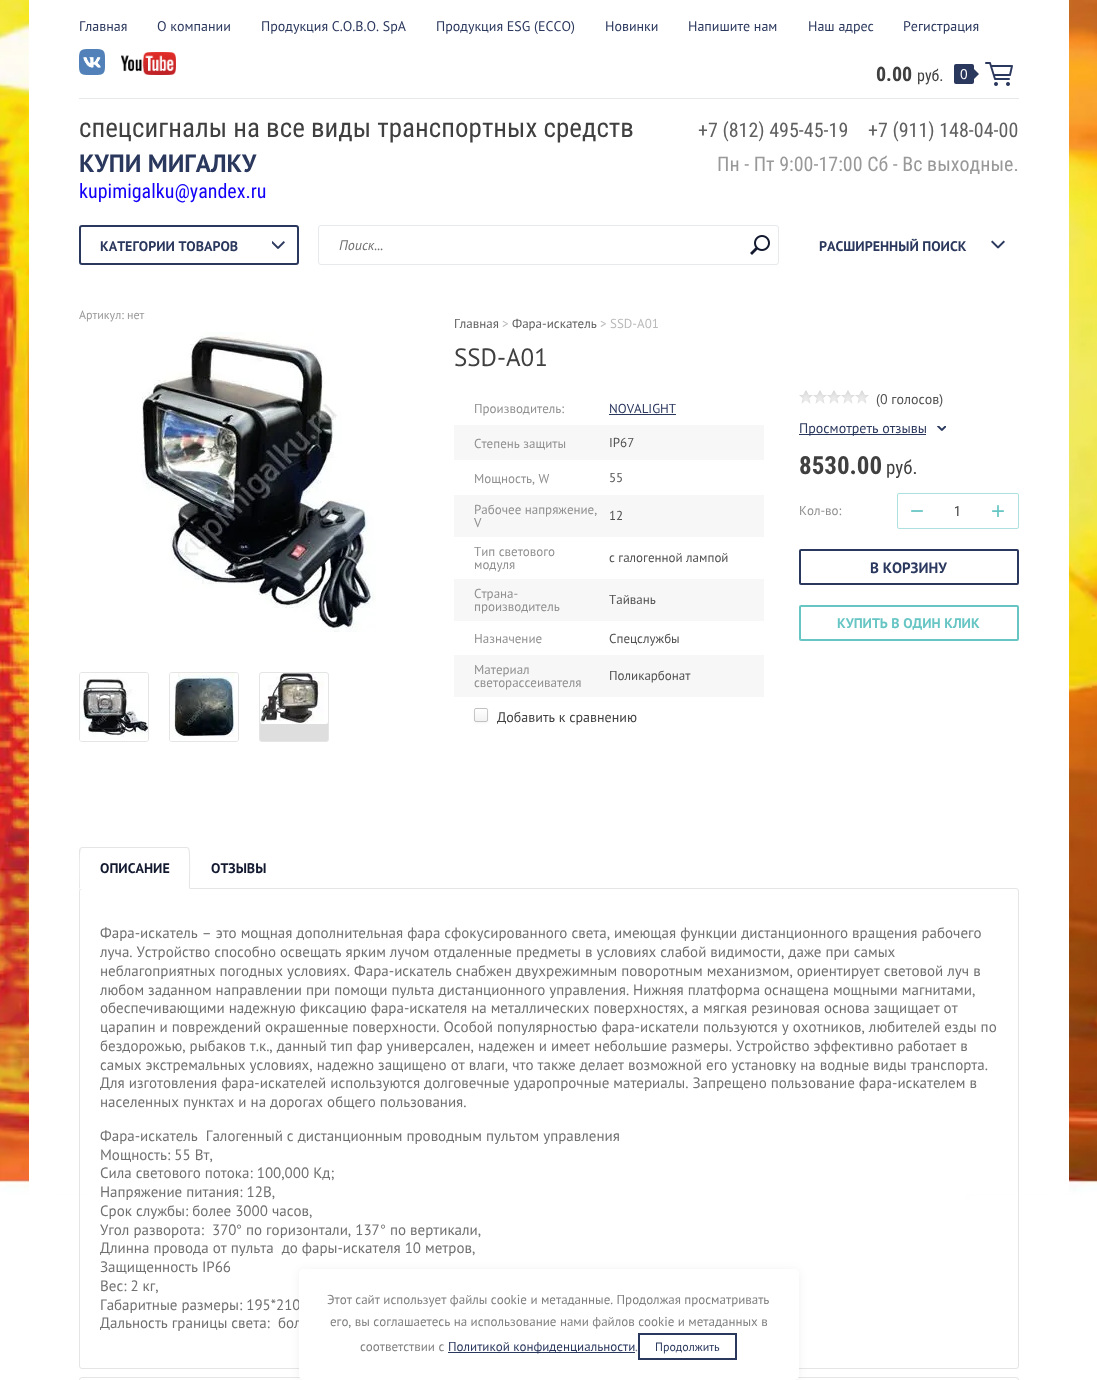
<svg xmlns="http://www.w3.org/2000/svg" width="1097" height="1380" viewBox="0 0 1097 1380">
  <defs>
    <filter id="blur1" x="-50%" y="-200%" width="200%" height="500%"><feGaussianBlur stdDeviation="1"/></filter>
    <clipPath id="clip1"><rect x="474" y="708" width="14" height="14" rx="2"/></clipPath>
    <linearGradient id="g1" gradientUnits="userSpaceOnUse" x1="481" y1="709" x2="481" y2="697"><stop offset="0" stop-color="#f2f2f2"/><stop offset="1" stop-color="#ffffff"/></linearGradient>
    <linearGradient id="g2" gradientUnits="userSpaceOnUse" x1="481" y1="721" x2="481" y2="709"><stop offset="0" stop-color="#f2f2f2"/><stop offset="1" stop-color="#ffffff"/></linearGradient>
    <filter id="blur2" x="-50%" y="-200%" width="200%" height="500%"><feGaussianBlur stdDeviation="5"/></filter>
  </defs>
  <rect width="100%" height="100%" fill="#ffffff"/>
  <image x="0" y="0" width="1097" height="1380" href="img1.png"/>
  <rect x="29" y="0" width="1040" height="1194" fill="#ffffff"/>
  <rect x="79" y="98" width="940" height="1" fill="#e5e9ea"/>
  <text x="79" y="31" font-family="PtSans" font-size="14" fill="#2b385e">Главная</text>
  <text x="157" y="31" font-family="PtSans" font-size="14" fill="#2b385e">О компании</text>
  <text x="261" y="31" font-family="PtSans" font-size="14" fill="#2b385e">Продукция C.O.B.O. SpA</text>
  <text x="436" y="31" font-family="PtSans" font-size="14" fill="#2b385e">Продукция ESG (ECCO)</text>
  <text x="605" y="31" font-family="PtSans" font-size="14" fill="#2b385e">Новинки</text>
  <text x="688" y="31" font-family="PtSans" font-size="14" fill="#2b385e">Напишите нам</text>
  <text x="808" y="31" font-family="PtSans" font-size="14" fill="#2b385e">Наш адрес</text>
  <text x="903" y="31" font-family="PtSans" font-size="14" fill="#2b385e">Регистрация</text>
  <image x="79" y="49" width="26" height="26" href="img2.png"/>
  <image x="121" y="52" width="55" height="23" href="img3.png"/>
  <text x="876" y="81" font-family="Roboto Condensed" font-size="20" font-weight="bold" fill="#404040">0.00</text>
  <text x="917" y="81" font-family="Roboto Condensed" font-size="16" fill="#404040">руб.</text>
  <rect x="954" y="64" width="20" height="20" rx="2" fill="#2b385e"/>
  <text x="960" y="79" font-family="PtSans" font-size="14" fill="#ffffff">0</text>
  <path d="M974 79V69L979 74Z" fill="#2b385e"/>
  <image x="985" y="62" width="28" height="24" href="img4.png"/>
  <text x="79" y="137" font-family="Roboto Condensed" font-size="27" fill="#404040">спецсигналы на все виды транспортных средств</text>
  <text x="79" y="172" font-family="PtSans" font-size="25" font-weight="bold" fill="#2b385e">КУПИ МИГАЛКУ</text>
  <text x="79" y="198" font-family="Roboto Condensed" font-size="20" fill="#1200f7">kupimigalku@yandex.ru</text>
  <text x="698" y="137" font-family="Roboto Condensed" font-size="20" fill="#606060">+7 (812) 495-45-19</text>
  <text x="868" y="137" font-family="Roboto Condensed" font-size="20" fill="#606060">+7 (911) 148-04-00</text>
  <text x="717" y="171" font-family="Roboto Condensed" font-size="20" fill="#999999">Пн - Пт 9:00-17:00 Сб - Вс выходные.</text>
  <rect x="80" y="226" width="218" height="38" rx="2" fill="none" stroke="#2b385e" stroke-width="2"/>
  <text x="100" y="251" font-family="PtSans" font-size="14" font-weight="bold" fill="#2b385e">КАТЕГОРИИ ТОВАРОВ</text>
  <image x="272" y="241" width="13" height="8" href="img5.png"/>
  <rect x="318.5" y="225.5" width="460" height="39" rx="2.5" fill="none" stroke="#e6eaeb"/>
  <text x="339" y="250" font-family="PtSans" font-size="14" font-style="italic" fill="#707070">Поиск...</text>
  <image x="750" y="235" width="20" height="20" href="img6.png"/>
  <text x="819" y="251" font-family="PtSans" font-size="14" font-weight="bold" fill="#2b385e">РАСШИРЕННЫЙ ПОИСК</text>
  <image x="991" y="240" width="14" height="9" href="img7.png"/>
  <text x="79" y="319" font-family="PtSans" font-size="12" fill="#999999">Артикул: нет</text>
  <image x="140" y="332" width="236" height="300" href="img8.png"/>
  <rect x="79.5" y="672.5" width="69" height="69" rx="2.5" fill="none" stroke="#e5e5e5"/>
  <image x="80" y="673" width="68" height="68" href="img9.png"/>
  <rect x="169.5" y="672.5" width="69" height="69" rx="2.5" fill="none" stroke="#e5e5e5"/>
  <image x="170" y="673" width="68" height="68" href="img10.png"/>
  <rect x="259.5" y="672.5" width="69" height="69" rx="2.5" fill="#dedede" stroke="#e5e5e5"/>
  <image x="260" y="673" width="68" height="51" href="img11.png"/>
  <text x="474" y="413" font-family="PtSans" font-size="13" fill="#909090">Производитель:</text>
  <text x="609" y="413" font-family="PtSans" font-size="13" fill="#2b385e">NOVALIGHT</text>
  <rect x="609" y="414" width="67" height="1" fill="#2b385e"/>
  <rect x="454" y="425" width="310" height="35" fill="#f7f7f7"/>
  <text x="474" y="448" font-family="PtSans" font-size="13" fill="#909090">Степень защиты</text>
  <text x="609" y="447" font-family="PtSans" font-size="13" fill="#505050">IP67</text>
  <text x="474" y="483" font-family="PtSans" font-size="13" fill="#909090">Мощность, W</text>
  <text x="609" y="482" font-family="PtSans" font-size="13" fill="#505050">55</text>
  <rect x="454" y="495" width="310" height="42" fill="#f7f7f7"/>
  <text x="474" y="514" font-family="PtSans" font-size="13" fill="#909090">Рабочее напряжение,</text>
  <text x="474" y="527" font-family="PtSans" font-size="13" fill="#909090">V</text>
  <text x="609" y="520" font-family="PtSans" font-size="13" fill="#505050">12</text>
  <text x="474" y="556" font-family="PtSans" font-size="13" fill="#909090">Тип светового</text>
  <text x="474" y="569" font-family="PtSans" font-size="13" fill="#909090">модуля</text>
  <text x="609" y="562" font-family="PtSans" font-size="13" fill="#505050">с галогенной лампой</text>
  <rect x="454" y="579" width="310" height="42" fill="#f7f7f7"/>
  <text x="474" y="598" font-family="PtSans" font-size="13" fill="#909090">Страна-</text>
  <text x="474" y="611" font-family="PtSans" font-size="13" fill="#909090">производитель</text>
  <text x="609" y="604" font-family="PtSans" font-size="13" fill="#505050">Тайвань</text>
  <text x="474" y="643" font-family="PtSans" font-size="13" fill="#909090">Назначение</text>
  <text x="609" y="643" font-family="PtSans" font-size="13" fill="#505050">Спецслужбы</text>
  <rect x="454" y="655" width="310" height="42" fill="#f7f7f7"/>
  <text x="474" y="674" font-family="PtSans" font-size="13" fill="#909090">Материал</text>
  <text x="474" y="687" font-family="PtSans" font-size="13" fill="#909090">светорассеивателя</text>
  <text x="609" y="680" font-family="PtSans" font-size="13" fill="#505050">Поликарбонат</text>
  <rect x="474" y="709" width="14" height="14" rx="2" fill="#000000" fill-opacity="0.05" filter="url(#blur1)"/>
  <g clip-path="url(#clip1)">
    <rect x="474" y="708" width="14" height="1" fill="url(#g1)"/>
    <rect x="474" y="709" width="14" height="12" fill="url(#g2)"/>
  </g>
  <rect x="474.5" y="708.5" width="13" height="13" rx="1.5" fill="none" stroke="#000000" stroke-opacity="0.2"/>
  <text x="497" y="722" font-family="PtSans" font-size="14" fill="#404040">Добавить к сравнению</text>
  <image x="799" y="390" width="70" height="14" href="img12.png"/>
  <text x="876" y="404" font-family="PtSans" font-size="14" fill="#505050">(0 голосов)</text>
  <rect x="799" y="434" width="127" height="1" fill="#2b385e"/>
  <text x="799" y="433" font-family="PtSans" font-size="14" fill="#2b385e">Просмотреть отзывы</text>
  <image x="937" y="426" width="9" height="5" href="img13.png"/>
  <text x="799" y="474" font-family="Roboto Condensed" font-size="25" font-weight="bold" fill="#404040">8530.00</text>
  <text x="886" y="474" font-family="Roboto Condensed" font-size="19" fill="#404040">руб.</text>
  <text x="799" y="515" font-family="PtSans" font-size="13" fill="#909090">Кол-во:</text>
  <rect x="897.5" y="493.5" width="121" height="35" rx="1.5" fill="none" stroke="#ade0df"/>
  <text x="910" y="519" font-family="Liberation Sans" font-size="24" fill="#67c6c4">−</text>
  <text x="954" y="516" font-family="Roboto Condensed" font-size="14" fill="#404040">1</text>
  <text x="991" y="519" font-family="Liberation Sans" font-size="24" fill="#67c6c4">+</text>
  <rect x="800" y="550" width="218" height="34" rx="1" fill="none" stroke="#2b385e" stroke-width="2"/>
  <text x="870" y="573" font-family="PtSans" font-size="15" font-weight="bold" fill="#2b385e">В КОРЗИНУ</text>
  <rect x="800" y="606" width="218" height="34" rx="1" fill="none" stroke="#67c6c4" stroke-width="2"/>
  <text x="837" y="628" font-family="PtSans" font-size="14" font-weight="bold" fill="#67c6c4">КУПИТЬ В ОДИН КЛИК</text>
  <path d="M82 847L80 848L81 849L82 848H187L188 849L189 848L187 847Z" fill="#e5e5e5"/>
  <rect x="79.5" y="888.5" width="939" height="480" rx="2.5" fill="none" stroke="#e5e5e5"/>
  <path d="M190 889C190 884 191 850 189 848L188 849C190 850 189 883 189 888Z" fill="#e5e5e5"/>
  <path d="M190 889L189 888H80L79 889Z" fill="#ffffff"/>
  <path d="M79 889L80 888C80 883 79 850 81 849L80 848L79 850Z" fill="#e5e5e5"/>
  <text x="100" y="873" font-family="PtSans" font-size="14" font-weight="bold" fill="#131a30">ОПИСАНИЕ</text>
  <text x="211" y="873" font-family="PtSans" font-size="14" font-weight="bold" fill="#131a30">ОТЗЫВЫ</text>
  <text x="100" y="938" font-family="PtSans" font-size="15" fill="#707070">Фара-искатель – это мощная дополнительная фара сфокусированного света, имеющая функции дистанционного вращения рабочего</text>
  <text x="100" y="957" font-family="PtSans" font-size="15" fill="#707070">луча. Устройство способно освещать ярким лучом отдаленные предметы в условиях слабой видимости, даже при самых</text>
  <text x="100" y="976" font-family="PtSans" font-size="15" fill="#707070">неблагоприятных погодных условиях. Фара-искатель снабжен двухрежимным поворотным механизмом, ориентирует световой луч в</text>
  <text x="100" y="995" font-family="PtSans" font-size="15" fill="#707070">любом заданном направлении при помощи пульта дистанционного управления. Нижняя платформа оснащена мощными магнитами,</text>
  <text x="100" y="1013" font-family="PtSans" font-size="15" fill="#707070">обеспечивающими надежную фиксацию фара-искателя на металлических поверхностях, а мягкая резиновая основа защищает от</text>
  <text x="100" y="1032" font-family="PtSans" font-size="15" fill="#707070">царапин и повреждений окрашенные поверхности. Особой популярностью фара-искатели пользуются у охотников, любителей езды по</text>
  <text x="100" y="1051" font-family="PtSans" font-size="15" fill="#707070">бездорожью, рыбаков т.к., данный тип фар универсален, надежен и имеет небольшие размеры. Устройство эффективно работает в</text>
  <text x="100" y="1070" font-family="PtSans" font-size="15" fill="#707070">самых экстремальных условиях, надежно защищено от влаги, что также делает возможной его установку на водные виды транспорта.</text>
  <text x="100" y="1088" font-family="PtSans" font-size="15" fill="#707070">Для изготовления фара-искателей используются долговечные ударопрочные материалы. Запрещено пользование фара-искателем в</text>
  <text x="100" y="1107" font-family="PtSans" font-size="15" fill="#707070">населенных пунктах и на дорогах общего пользования.</text>
  <text x="100" y="1141" font-family="PtSans" font-size="15" fill="#707070" xml:space="preserve">Фара-искатель  Галогенный с дистанционным проводным пультом управления</text>
  <text x="100" y="1160" font-family="PtSans" font-size="15" fill="#707070">Мощность: 55 Вт,</text>
  <text x="100" y="1178" font-family="PtSans" font-size="15" fill="#707070">Сила светового потока: 100,000 Кд;</text>
  <text x="100" y="1197" font-family="PtSans" font-size="15" fill="#707070">Напряжение питания: 12В,</text>
  <text x="100" y="1216" font-family="PtSans" font-size="15" fill="#707070">Срок службы: более 3000 часов,</text>
  <text x="100" y="1235" font-family="PtSans" font-size="15" fill="#707070" xml:space="preserve">Угол разворота:  370</text>
  <text x="236" y="1235" font-family="Liberation Sans" font-size="15" fill="#707070">°</text>
  <text x="246" y="1235" font-family="PtSans" font-size="15" fill="#707070">по горизонтали, 137</text>
  <text x="380" y="1235" font-family="Liberation Sans" font-size="15" fill="#707070">°</text>
  <text x="390" y="1235" font-family="PtSans" font-size="15" fill="#707070">по вертикали,</text>
  <text x="100" y="1253" font-family="PtSans" font-size="15" fill="#707070" xml:space="preserve">Длинна провода от пульта  до фары-искателя 10 метров,</text>
  <text x="100" y="1272" font-family="PtSans" font-size="15" fill="#707070">Защищенность IP66</text>
  <text x="100" y="1291" font-family="PtSans" font-size="15" fill="#707070">Вес: 2 кг,</text>
  <text x="100" y="1310" font-family="PtSans" font-size="15" fill="#707070">Габаритные размеры: 195*210</text>
  <text x="100" y="1328" font-family="PtSans" font-size="15" fill="#707070" xml:space="preserve">Дальность границы света:  бол</text>
  <rect x="79.5" y="1377.5" width="939" height="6" rx="2.5" fill="none" stroke="#e5e5e5"/>
  <text x="454" y="328" font-family="PtSans" font-size="13" fill="#606060">Главная</text>
  <text x="502" y="328" font-family="PtSans" font-size="13" fill="#bababa">&gt;</text>
  <text x="512" y="328" font-family="PtSans" font-size="13" fill="#606060">Фара-искатель</text>
  <text x="600" y="328" font-family="PtSans" font-size="13" fill="#bababa">&gt; SSD-A01</text>
  <text x="454" y="366" font-family="PtSans" font-size="25" fill="#404040">SSD-A01</text>
  <rect x="299" y="1270" width="500" height="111" rx="5" fill="#000000" fill-opacity="0.06" filter="url(#blur2)"/>
  <rect x="299" y="1269" width="500" height="111" rx="5" fill="#ffffff"/>
  <text x="327" y="1304" font-family="PtSans" font-size="13" fill="#808080">Этот сайт использует файлы cookie и метаданные. Продолжая просматривать</text>
  <text x="330" y="1326" font-family="PtSans" font-size="13" fill="#808080">его, вы соглашаетесь на использование нами файлов cookie и метаданных в</text>
  <text x="360" y="1351" font-family="PtSans" font-size="13" fill="#808080">соответствии с</text>
  <rect x="448" y="1352" width="187" height="1" fill="#2b385e"/>
  <text x="448" y="1351" font-family="PtSans" font-size="13" fill="#2b385e">Политикой конфиденциальности</text>
  <text x="635" y="1351" font-family="PtSans" font-size="13" fill="#808080">.</text>
  <rect x="639" y="1334" width="97" height="25" fill="none" stroke="#2b385e" stroke-width="2"/>
  <text x="655" y="1351" font-family="PtSans" font-size="12" fill="#2b385e">Продолжить</text>
</svg>
